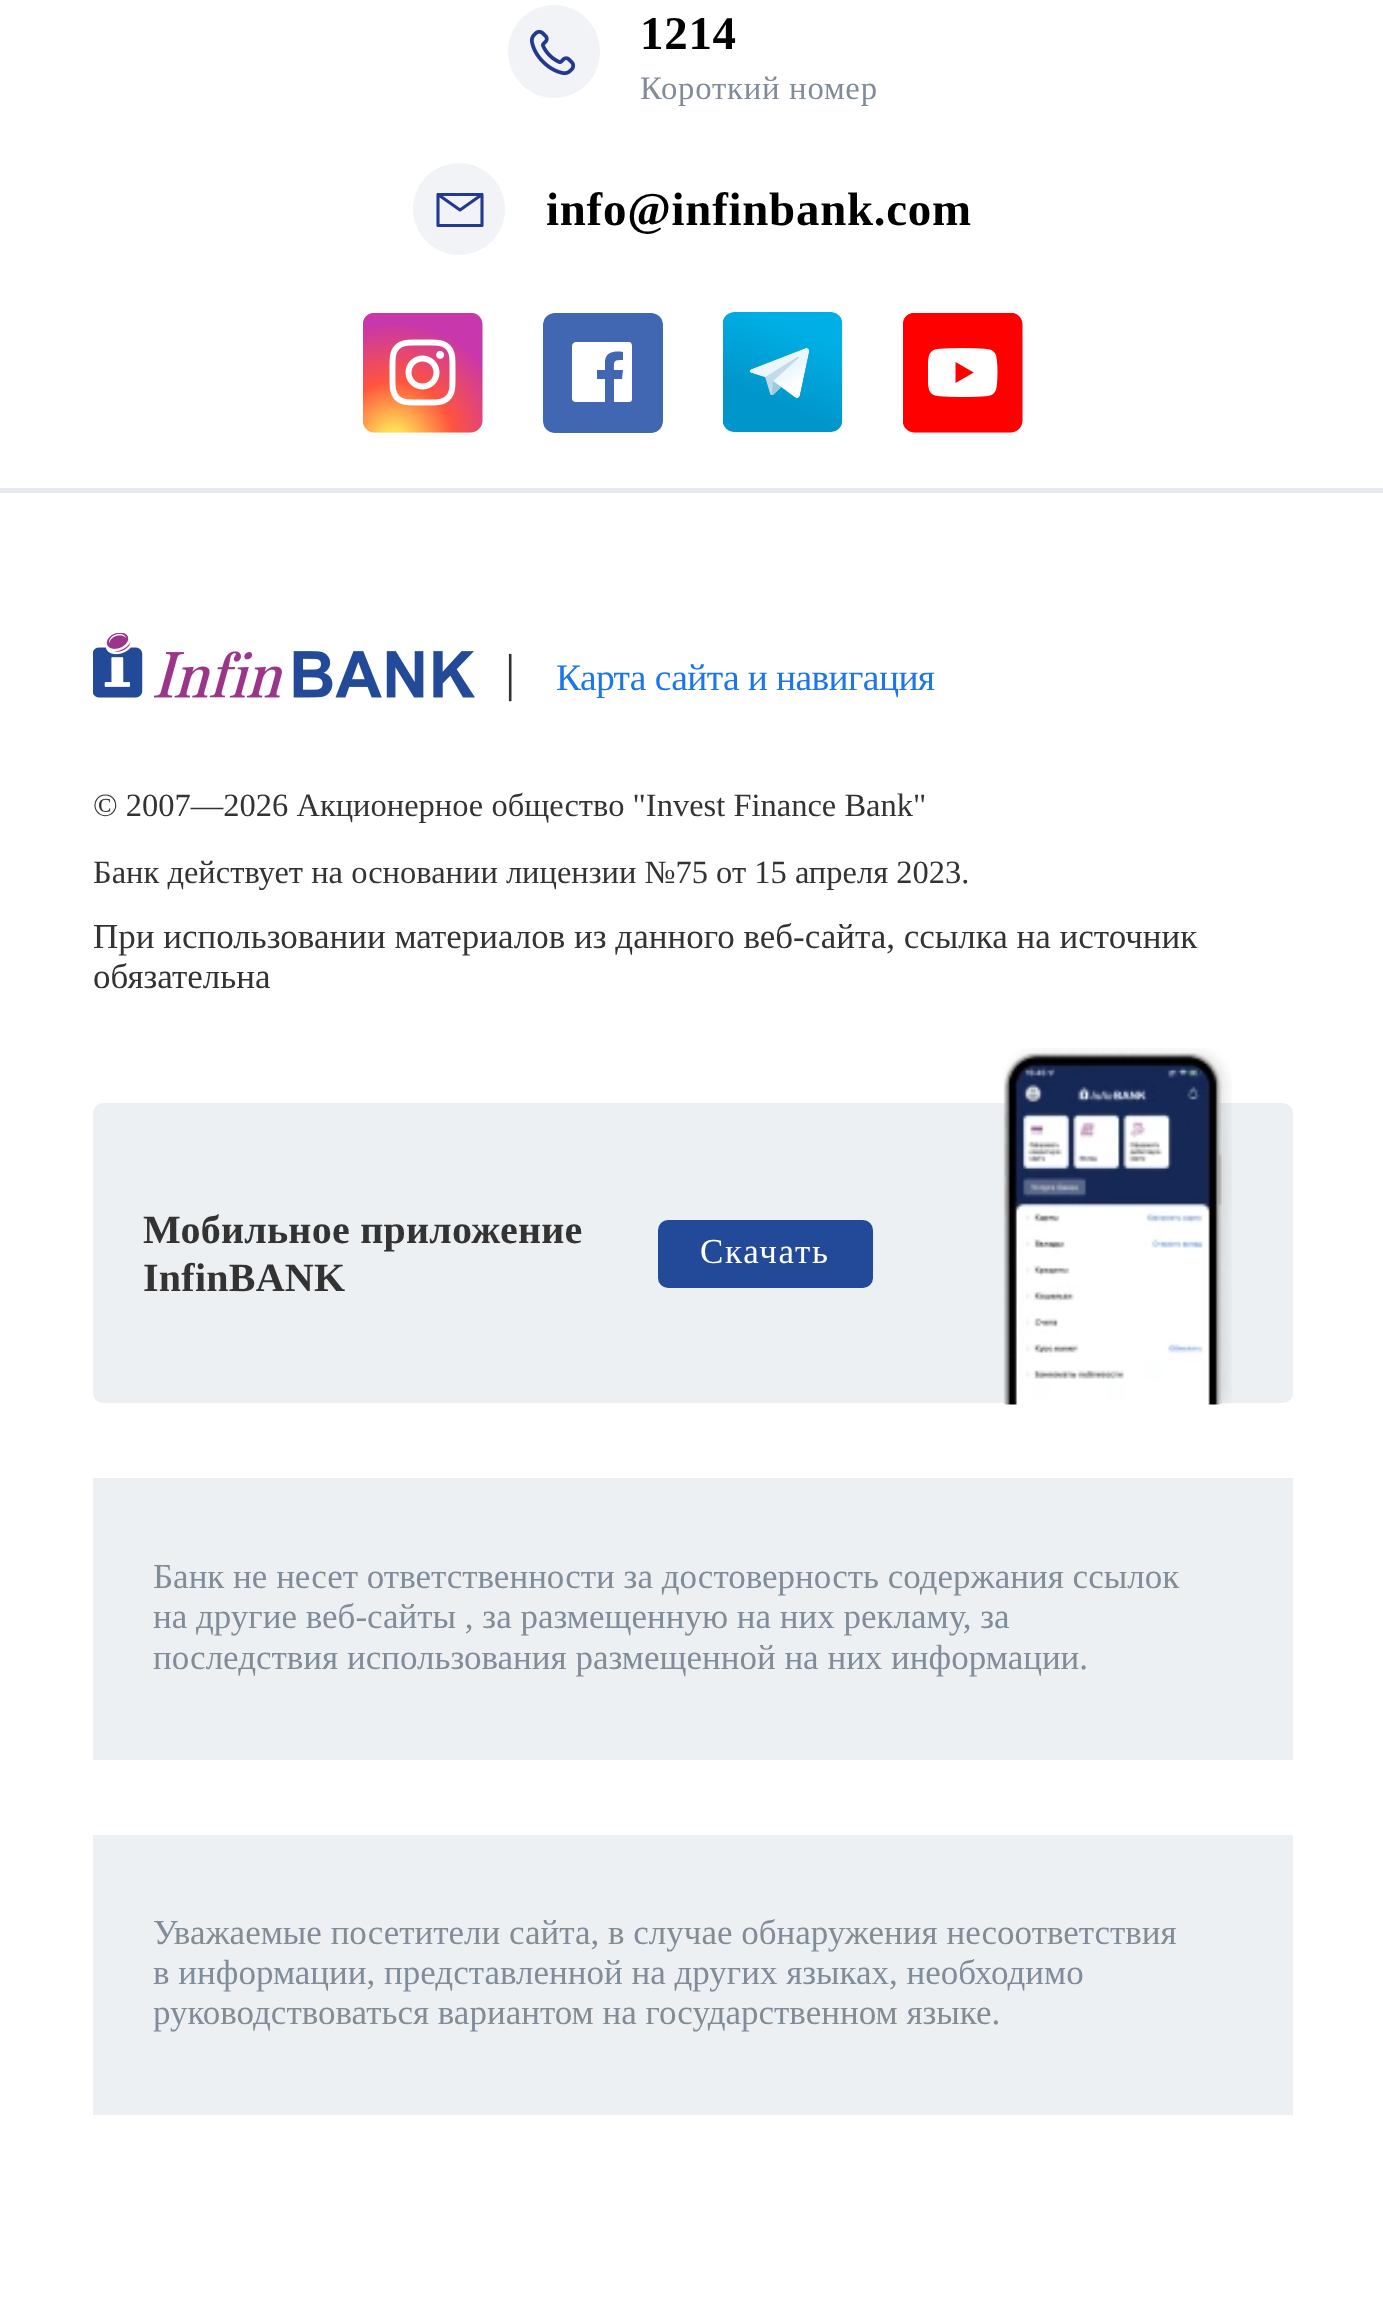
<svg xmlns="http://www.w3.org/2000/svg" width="1383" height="2306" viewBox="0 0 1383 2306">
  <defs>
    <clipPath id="clip1"><rect x="543" y="313" width="120" height="120" rx="10"/></clipPath>
  </defs>
  <rect width="100%" height="100%" fill="#ffffff"/>
  <rect x="508" y="5" width="92" height="93" rx="46" fill="#f2f3f7"/>
  <image x="529" y="29" width="47" height="47" href="img1.png"/>
  <text x="640" y="49" font-family="Liberation Serif" font-size="46.9" font-weight="bold" letter-spacing="0.75" fill="#000000">1214</text>
  <text x="640" y="99" font-family="Liberation Serif" font-size="32.75" letter-spacing="0.75" fill="#818c99">Короткий номер</text>
  <circle cx="459" cy="209" r="46" fill="#f2f3f7"/>
  <path d="M438 225.5H482V194.5H438ZM438 194.5L460 210L482 194.5" fill="none" stroke="#213a8f" stroke-width="3.1" stroke-linecap="round" stroke-linejoin="round"/>
  <text x="546" y="225" font-family="Liberation Serif" font-size="46.9" font-weight="bold" letter-spacing="0.75" fill="#000000">info@infinbank.com</text>
  <image x="363" y="313" width="120" height="120" href="img2.png"/>
  <image x="363" y="313" width="120" height="120" href="img3.png"/>
  <image x="543" y="313" width="120" height="120" href="img4.png"/>
  <g clip-path="url(#clip1)">
    <rect x="543" y="313" width="120" height="120" rx="12" fill="#4267b2"/>
  </g>
  <path d="M629 342H576C574 342 572 344 572 346V399C572 401 574 402 576 402H605V379H597V370H605V361C606 351 616 351 623 352V360C613 360 614 361 614 370H623L622 379H614V402H629C631 402 632 401 632 399V346C632 344 631 342 629 342" fill="#ffffff" fill-rule="evenodd"/>
  <image x="723" y="312" width="119" height="120" href="img5.png"/>
  <image x="723" y="312" width="120" height="120" href="img6.png"/>
  <image x="903" y="313" width="120" height="120" href="img7.png"/>
  <image x="903" y="313" width="120" height="120" href="img8.png"/>
  <rect x="0" y="488" width="1383" height="5" fill="#e6eaf0"/>
  <image x="93" y="633" width="382" height="65" href="img9.png"/>
  <text x="505" y="690" font-family="Liberation Serif" font-size="52" fill="#333333">|</text>
  <text x="556" y="690" font-family="Liberation Serif" font-size="37.5" letter-spacing="-0.6" fill="#1c76ea">Карта сайта и навигация</text>
  <text x="93" y="816" font-family="Liberation Serif" font-size="32.5" fill="#333333">© 2007—2026 Акционерное общество "Invest Finance Bank"</text>
  <text x="93" y="883" font-family="Liberation Serif" font-size="32.5" fill="#333333">Банк действует на основании лицензии №75 от 15 апреля 2023.</text>
  <text x="93" y="948" font-family="Liberation Serif" font-size="35" fill="#333333">При использовании материалов из данного веб-сайта, ссылка на источник</text>
  <text x="93" y="988" font-family="Liberation Serif" font-size="35" fill="#333333">обязательна</text>
  <rect x="93" y="1103" width="1200" height="300" rx="10" fill="#ecf0f3"/>
  <text x="143" y="1243" font-family="Liberation Serif" font-size="40" font-weight="bold" letter-spacing="0.25" fill="#333333">Мобильное приложение</text>
  <text x="143" y="1291" font-family="Liberation Serif" font-size="40" font-weight="bold" letter-spacing="0.25" fill="#333333">InfinBANK</text>
  <rect x="658" y="1220" width="215" height="68" rx="10" fill="#234a98"/>
  <text x="700" y="1263" font-family="Liberation Serif" font-size="35" letter-spacing="1.75" fill="#ffffff">Скачать</text>
  <image x="1003" y="1048" width="229" height="357" href="img10.png"/>
  <rect x="93" y="1478" width="1200" height="282" fill="#ecf0f3"/>
  <text x="153" y="1588" font-family="Liberation Serif" font-size="35" fill="#818c99">Банк не несет ответственности за достоверность содержания ссылок</text>
  <text x="153" y="1628" font-family="Liberation Serif" font-size="35" fill="#818c99">на другие веб-сайты , за размещенную на них рекламу, за</text>
  <text x="153" y="1669" font-family="Liberation Serif" font-size="35" fill="#818c99">последствия использования размещенной на них информации.</text>
  <rect x="93" y="1835" width="1200" height="280" fill="#ecf0f3"/>
  <text x="153" y="1944" font-family="Liberation Serif" font-size="35" fill="#818c99">Уважаемые посетители сайта, в случае обнаружения несоответствия</text>
  <text x="153" y="1984" font-family="Liberation Serif" font-size="35" fill="#818c99">в информации, представленной на других языках, необходимо</text>
  <text x="153" y="2024" font-family="Liberation Serif" font-size="35" fill="#818c99">руководствоваться вариантом на государственном языке.</text>
</svg>
